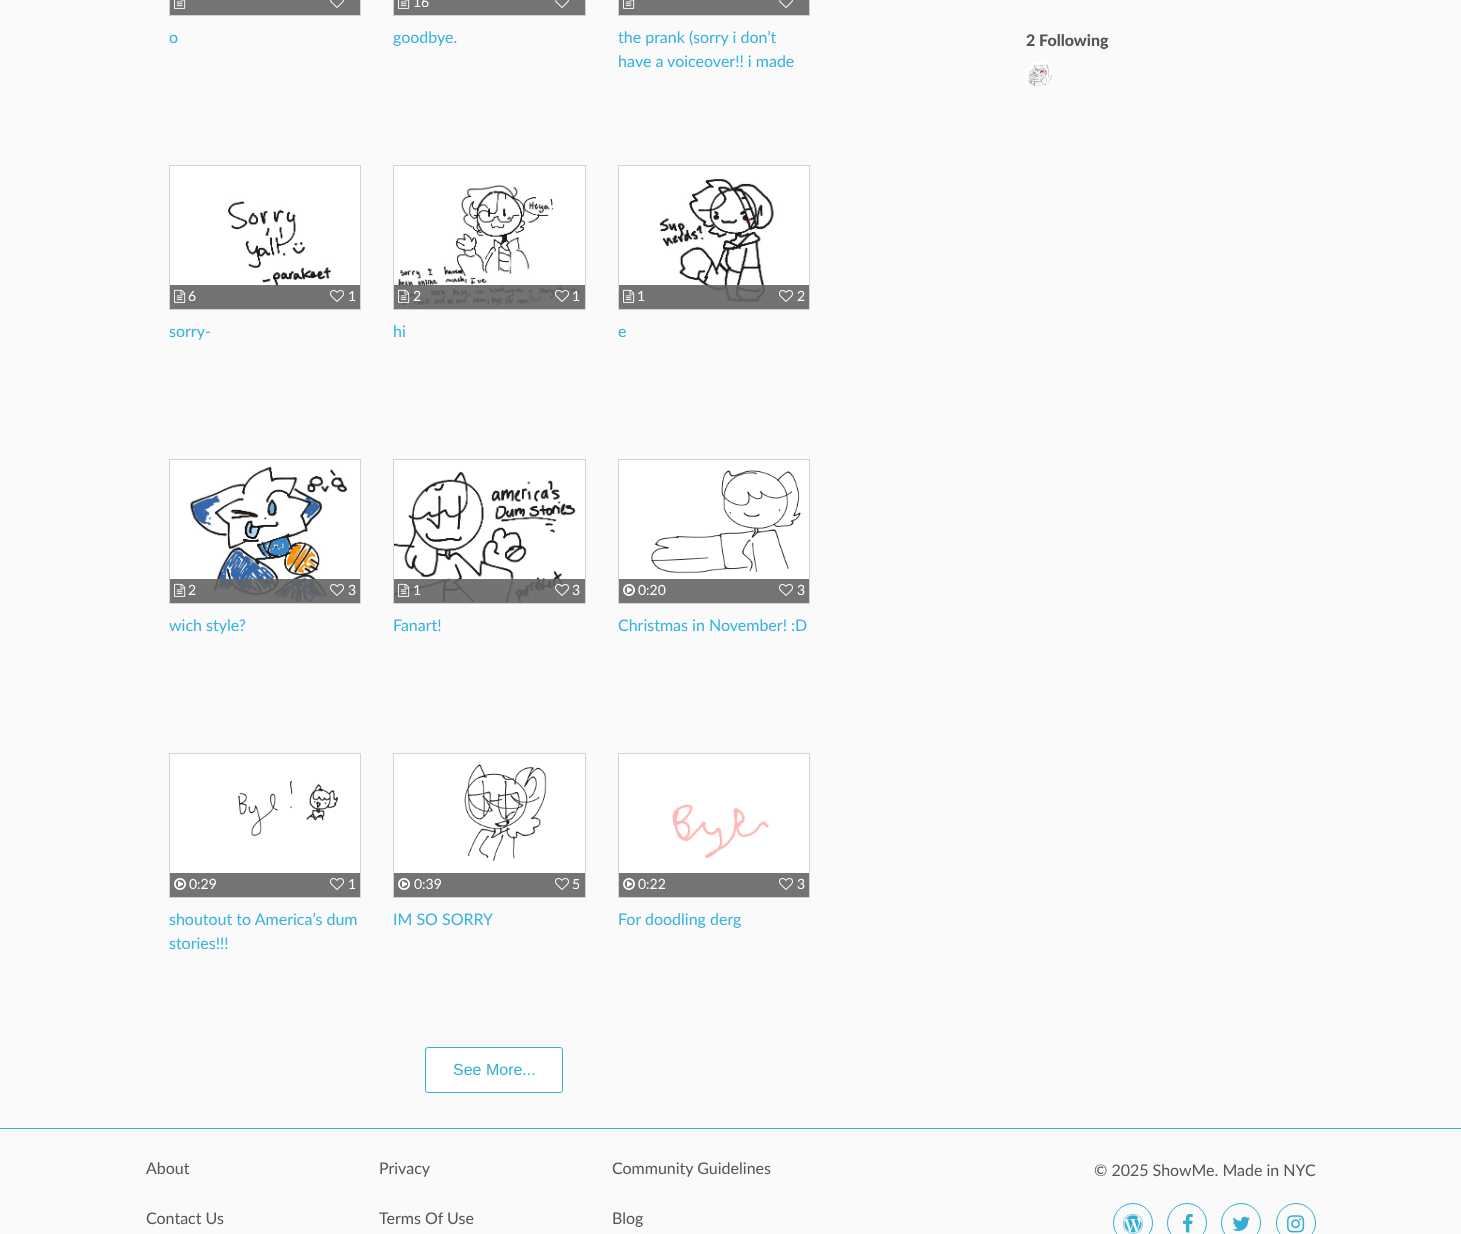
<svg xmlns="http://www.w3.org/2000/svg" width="1461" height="1234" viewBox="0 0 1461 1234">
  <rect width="100%" height="100%" fill="#fafafa"/>
  <rect x="169.5" y="-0.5" width="191" height="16" fill="none" stroke="#d3d3d3"/>
  <rect x="170" y="0" width="190" height="15" fill="#747474"/>
  <image x="174" y="0" width="12" height="9" href="img1.png"/>
  <image x="330" y="0" width="14" height="8" href="img2.png"/>
  <text x="169" y="43" font-family="Lato" font-size="16" fill="#35b2de">o</text>
  <rect x="393.5" y="-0.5" width="192" height="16" fill="none" stroke="#d3d3d3"/>
  <rect x="394" y="0" width="191" height="15" fill="#747474"/>
  <image x="398" y="0" width="12" height="9" href="img1.png"/>
  <text x="413" y="7" font-family="Lato" font-size="14" fill="#ffffff">16</text>
  <image x="555" y="0" width="14" height="8" href="img2.png"/>
  <text x="393" y="43" font-family="Lato" font-size="16" fill="#35b2de">goodbye.</text>
  <rect x="618.5" y="-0.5" width="191" height="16" fill="none" stroke="#d3d3d3"/>
  <rect x="619" y="0" width="190" height="15" fill="#747474"/>
  <image x="623" y="0" width="12" height="9" href="img1.png"/>
  <image x="779" y="0" width="14" height="8" href="img2.png"/>
  <text x="618" y="43" font-family="Lato" font-size="16" fill="#35b2de">the prank (sorry i don’t</text>
  <text x="618" y="67" font-family="Lato" font-size="16" fill="#35b2de">have a voiceover!! i made</text>
  <rect x="169.5" y="165.5" width="191" height="144" fill="none" stroke="#d3d3d3"/>
  <image x="170" y="166" width="190" height="143" href="img3.png"/>
  <rect x="170" y="285" width="190" height="24" fill="#646464" fill-opacity="0.9"/>
  <image x="174" y="289" width="12" height="14" href="img4.png"/>
  <text x="188" y="301" font-family="Lato" font-size="14" fill="#ffffff">6</text>
  <image x="330" y="290" width="14" height="12" href="img5.png"/>
  <text x="348" y="301" font-family="Lato" font-size="14" fill="#ffffff">1</text>
  <text x="169" y="337" font-family="Lato" font-size="16" fill="#35b2de">sorry-</text>
  <rect x="393.5" y="165.5" width="192" height="144" fill="none" stroke="#d3d3d3"/>
  <image x="394" y="166" width="191" height="143" href="img6.png"/>
  <rect x="394" y="285" width="191" height="24" fill="#646464" fill-opacity="0.9"/>
  <image x="398" y="289" width="12" height="14" href="img7.png"/>
  <text x="413" y="301" font-family="Lato" font-size="14" fill="#ffffff">2</text>
  <image x="555" y="290" width="14" height="12" href="img8.png"/>
  <text x="572" y="301" font-family="Lato" font-size="14" fill="#ffffff">1</text>
  <text x="393" y="337" font-family="Lato" font-size="16" fill="#35b2de">hi</text>
  <rect x="618.5" y="165.5" width="191" height="144" fill="none" stroke="#d3d3d3"/>
  <image x="619" y="166" width="190" height="143" href="img9.png"/>
  <rect x="619" y="285" width="190" height="24" fill="#646464" fill-opacity="0.9"/>
  <image x="623" y="289" width="12" height="14" href="img4.png"/>
  <text x="637" y="301" font-family="Lato" font-size="14" fill="#ffffff">1</text>
  <image x="779" y="290" width="14" height="12" href="img5.png"/>
  <text x="797" y="301" font-family="Lato" font-size="14" fill="#ffffff">2</text>
  <text x="618" y="337" font-family="Lato" font-size="16" fill="#35b2de">e</text>
  <rect x="169.5" y="459.5" width="191" height="144" fill="none" stroke="#d3d3d3"/>
  <image x="170" y="460" width="190" height="143" href="img10.png"/>
  <rect x="170" y="579" width="190" height="24" fill="#646464" fill-opacity="0.9"/>
  <image x="174" y="583" width="12" height="14" href="img4.png"/>
  <text x="188" y="595" font-family="Lato" font-size="14" fill="#ffffff">2</text>
  <image x="330" y="584" width="14" height="12" href="img5.png"/>
  <text x="348" y="595" font-family="Lato" font-size="14" fill="#ffffff">3</text>
  <text x="169" y="631" font-family="Lato" font-size="16" fill="#35b2de">wich style?</text>
  <rect x="393.5" y="459.5" width="192" height="144" fill="none" stroke="#d3d3d3"/>
  <image x="394" y="460" width="191" height="143" href="img11.png"/>
  <rect x="394" y="579" width="191" height="24" fill="#646464" fill-opacity="0.9"/>
  <image x="398" y="583" width="12" height="14" href="img12.png"/>
  <text x="413" y="595" font-family="Lato" font-size="14" fill="#ffffff">1</text>
  <image x="555" y="584" width="14" height="12" href="img13.png"/>
  <text x="572" y="595" font-family="Lato" font-size="14" fill="#ffffff">3</text>
  <text x="393" y="631" font-family="Lato" font-size="16" fill="#35b2de">Fanart!</text>
  <rect x="618.5" y="459.5" width="191" height="144" fill="none" stroke="#d3d3d3"/>
  <image x="619" y="460" width="190" height="119" href="img14.png"/>
  <rect x="619" y="579" width="190" height="24" fill="#747474"/>
  <image x="623" y="584" width="12" height="12" href="img15.png"/>
  <text x="638" y="595" font-family="Lato" font-size="14" fill="#ffffff">0:20</text>
  <image x="779" y="584" width="14" height="12" href="img16.png"/>
  <text x="797" y="595" font-family="Lato" font-size="14" fill="#ffffff">3</text>
  <text x="618" y="631" font-family="Lato" font-size="16" fill="#35b2de">Christmas in November! :D</text>
  <rect x="169.5" y="753.5" width="191" height="144" fill="none" stroke="#d3d3d3"/>
  <image x="170" y="754" width="190" height="119" href="img17.png"/>
  <rect x="170" y="873" width="190" height="24" fill="#747474"/>
  <image x="174" y="878" width="12" height="12" href="img15.png"/>
  <text x="189" y="889" font-family="Lato" font-size="14" fill="#ffffff">0:29</text>
  <image x="330" y="878" width="14" height="12" href="img16.png"/>
  <text x="348" y="889" font-family="Lato" font-size="14" fill="#ffffff">1</text>
  <text x="169" y="925" font-family="Lato" font-size="16" fill="#35b2de">shoutout to America’s dum</text>
  <text x="169" y="949" font-family="Lato" font-size="16" fill="#35b2de">stories!!!</text>
  <rect x="393.5" y="753.5" width="192" height="144" fill="none" stroke="#d3d3d3"/>
  <image x="394" y="754" width="191" height="119" href="img18.png"/>
  <rect x="394" y="873" width="191" height="24" fill="#747474"/>
  <image x="398" y="878" width="12" height="12" href="img15.png"/>
  <text x="414" y="889" font-family="Lato" font-size="14" fill="#ffffff">0:39</text>
  <image x="555" y="878" width="14" height="12" href="img16.png"/>
  <text x="572" y="889" font-family="Lato" font-size="14" fill="#ffffff">5</text>
  <text x="393" y="925" font-family="Lato" font-size="16" fill="#35b2de">IM SO SORRY</text>
  <rect x="618.5" y="753.5" width="191" height="144" fill="none" stroke="#d3d3d3"/>
  <image x="619" y="754" width="190" height="119" href="img19.png"/>
  <rect x="619" y="873" width="190" height="24" fill="#747474"/>
  <image x="623" y="878" width="12" height="12" href="img15.png"/>
  <text x="638" y="889" font-family="Lato" font-size="14" fill="#ffffff">0:22</text>
  <image x="779" y="878" width="14" height="12" href="img16.png"/>
  <text x="797" y="889" font-family="Lato" font-size="14" fill="#ffffff">3</text>
  <text x="618" y="925" font-family="Lato" font-size="16" fill="#35b2de">For doodling derg</text>
  <rect x="425.5" y="1047.5" width="137" height="45" rx="2.5" fill="#ffffff" stroke="#35add4"/>
  <text x="453" y="1075" font-family="Liberation Sans" font-size="16" fill="#35add4">See More...</text>
  <text x="1026" y="46" font-family="Lato" font-size="16" font-weight="900" fill="#555555">2 Following</text>
  <circle cx="1039" cy="74" r="13" fill="#ffffff"/>
  <image x="1028" y="64" width="24" height="23" href="img20.png"/>
  <rect x="0" y="1128" width="1461" height="1" fill="#35add4"/>
  <text x="146" y="1174" font-family="Lato" font-size="16" fill="#555555">About</text>
  <text x="146" y="1224" font-family="Lato" font-size="16" fill="#555555">Contact Us</text>
  <text x="379" y="1174" font-family="Lato" font-size="16" fill="#555555">Privacy</text>
  <text x="379" y="1224" font-family="Lato" font-size="16" fill="#555555">Terms Of Use</text>
  <text x="612" y="1174" font-family="Lato" font-size="16" fill="#555555">Community Guidelines</text>
  <text x="612" y="1224" font-family="Lato" font-size="16" fill="#555555">Blog</text>
  <text x="1094" y="1176" font-family="Lato" font-size="16" fill="#555555">© 2025 ShowMe. Made in NYC</text>
  <circle cx="1133" cy="1223" r="19.5" fill="none" stroke="#35add4"/>
  <image x="1123" y="1213" width="20" height="21" href="img21.png"/>
  <circle cx="1187" cy="1223" r="19.5" fill="none" stroke="#35add4"/>
  <image x="1183" y="1213" width="10" height="20" href="img22.png"/>
  <circle cx="1241" cy="1223" r="19.5" fill="none" stroke="#35add4"/>
  <image x="1232" y="1216" width="18" height="15" href="img23.png"/>
  <circle cx="1296" cy="1223" r="19.5" fill="none" stroke="#35add4"/>
  <image x="1287" y="1215" width="18" height="18" href="img24.png"/>
</svg>
